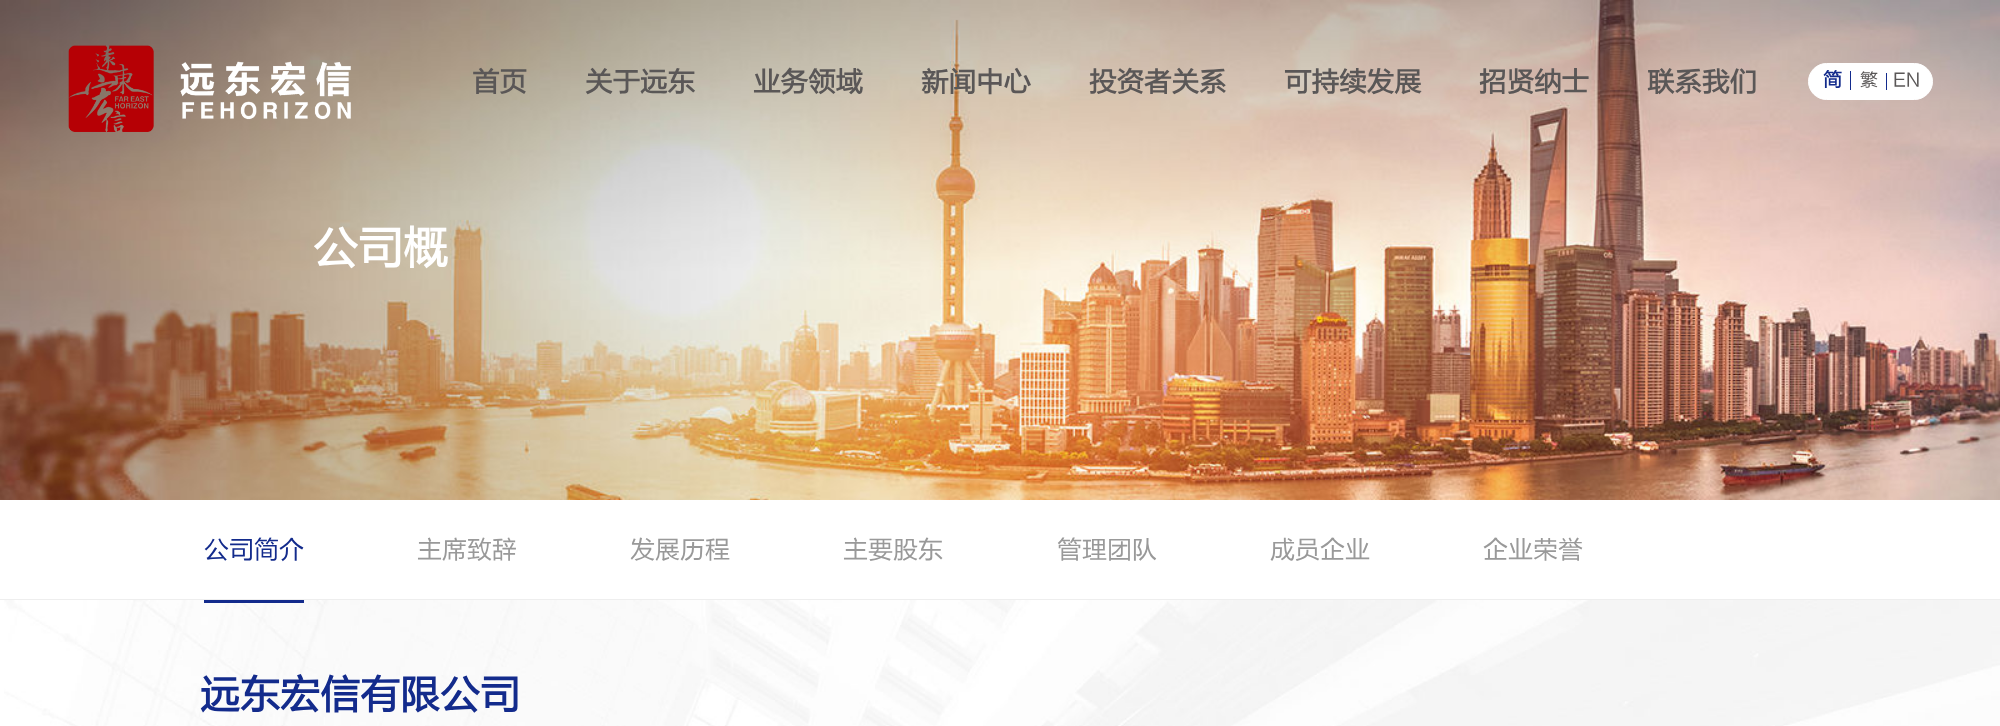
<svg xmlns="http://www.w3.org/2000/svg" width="2000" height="726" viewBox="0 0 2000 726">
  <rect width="100%" height="100%" fill="#ffffff"/>
  <image x="0" y="0" width="2000" height="500" href="img2.png"/>
  <image x="68" y="45" width="283" height="87" href="img1.png"/>
  <text x="472" y="91" font-family="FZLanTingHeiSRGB" font-size="27.5" font-weight="bold" fill="#5a5757">首页</text>
  <text x="585" y="91" font-family="FZLanTingHeiSRGB" font-size="27.5" font-weight="bold" fill="#5a5757">关于远东</text>
  <text x="753" y="91" font-family="FZLanTingHeiSRGB" font-size="27.5" font-weight="bold" fill="#5a5757">业务领域</text>
  <text x="921" y="91" font-family="FZLanTingHeiSRGB" font-size="27.5" font-weight="bold" fill="#5a5757">新闻中心</text>
  <text x="1089" y="91" font-family="FZLanTingHeiSRGB" font-size="27.5" font-weight="bold" fill="#5a5757">投资者关系</text>
  <text x="1284" y="91" font-family="FZLanTingHeiSRGB" font-size="27.5" font-weight="bold" fill="#5a5757">可持续发展</text>
  <text x="1479" y="91" font-family="FZLanTingHeiSRGB" font-size="27.5" font-weight="bold" fill="#5a5757">招贤纳士</text>
  <text x="1647" y="91" font-family="FZLanTingHeiSRGB" font-size="27.5" font-weight="bold" fill="#5a5757">联系我们</text>
  <rect x="1808.5" y="63.5" width="124" height="36" rx="18" fill="#ffffff" stroke="#ffffff"/>
  <rect x="1850" y="71" width="1" height="19" fill="#132b8d"/>
  <text x="1823" y="86" font-family="FZLanTingHeiSRGB" font-size="19" font-weight="bold" fill="#132b8c">简</text>
  <rect x="1886" y="73" width="1" height="17" fill="#132b8d"/>
  <text x="1860" y="86" font-family="FZLanTingHeiSRGB" font-size="18" fill="#5a5757">繁</text>
  <text x="1893" y="86" font-family="FZLanTingHeiSRGB" font-size="18" fill="#5a5757">EN</text>
  <text x="313" y="263" font-family="FZLanTingHeiSRGB" font-size="45" font-weight="bold" fill="#ffffff">公司概</text>
  <rect x="0" y="599" width="2000" height="1" fill="#eeeeee"/>
  <image x="4" y="600" width="1996" height="126" href="img3.png"/>
  <rect x="204" y="600" width="100" height="3" fill="#132b8c"/>
  <text x="204" y="558" font-family="FZLanTingHeiSRGB" font-size="25" fill="#132b8c">公司简介</text>
  <text x="417" y="558" font-family="FZLanTingHeiSRGB" font-size="25" fill="#999999">主席致辞</text>
  <text x="630" y="558" font-family="FZLanTingHeiSRGB" font-size="25" fill="#999999">发展历程</text>
  <text x="843" y="558" font-family="FZLanTingHeiSRGB" font-size="25" fill="#999999">主要股东</text>
  <text x="1057" y="558" font-family="FZLanTingHeiSRGB" font-size="25" fill="#999999">管理团队</text>
  <text x="1270" y="558" font-family="FZLanTingHeiSRGB" font-size="25" fill="#999999">成员企业</text>
  <text x="1483" y="558" font-family="FZLanTingHeiSRGB" font-size="25" fill="#999999">企业荣誉</text>
  <text x="200" y="708" font-family="FZLanTingHeiSRGB" font-size="40" font-weight="bold" fill="#132b8c">远东宏信有限公司</text>
</svg>
